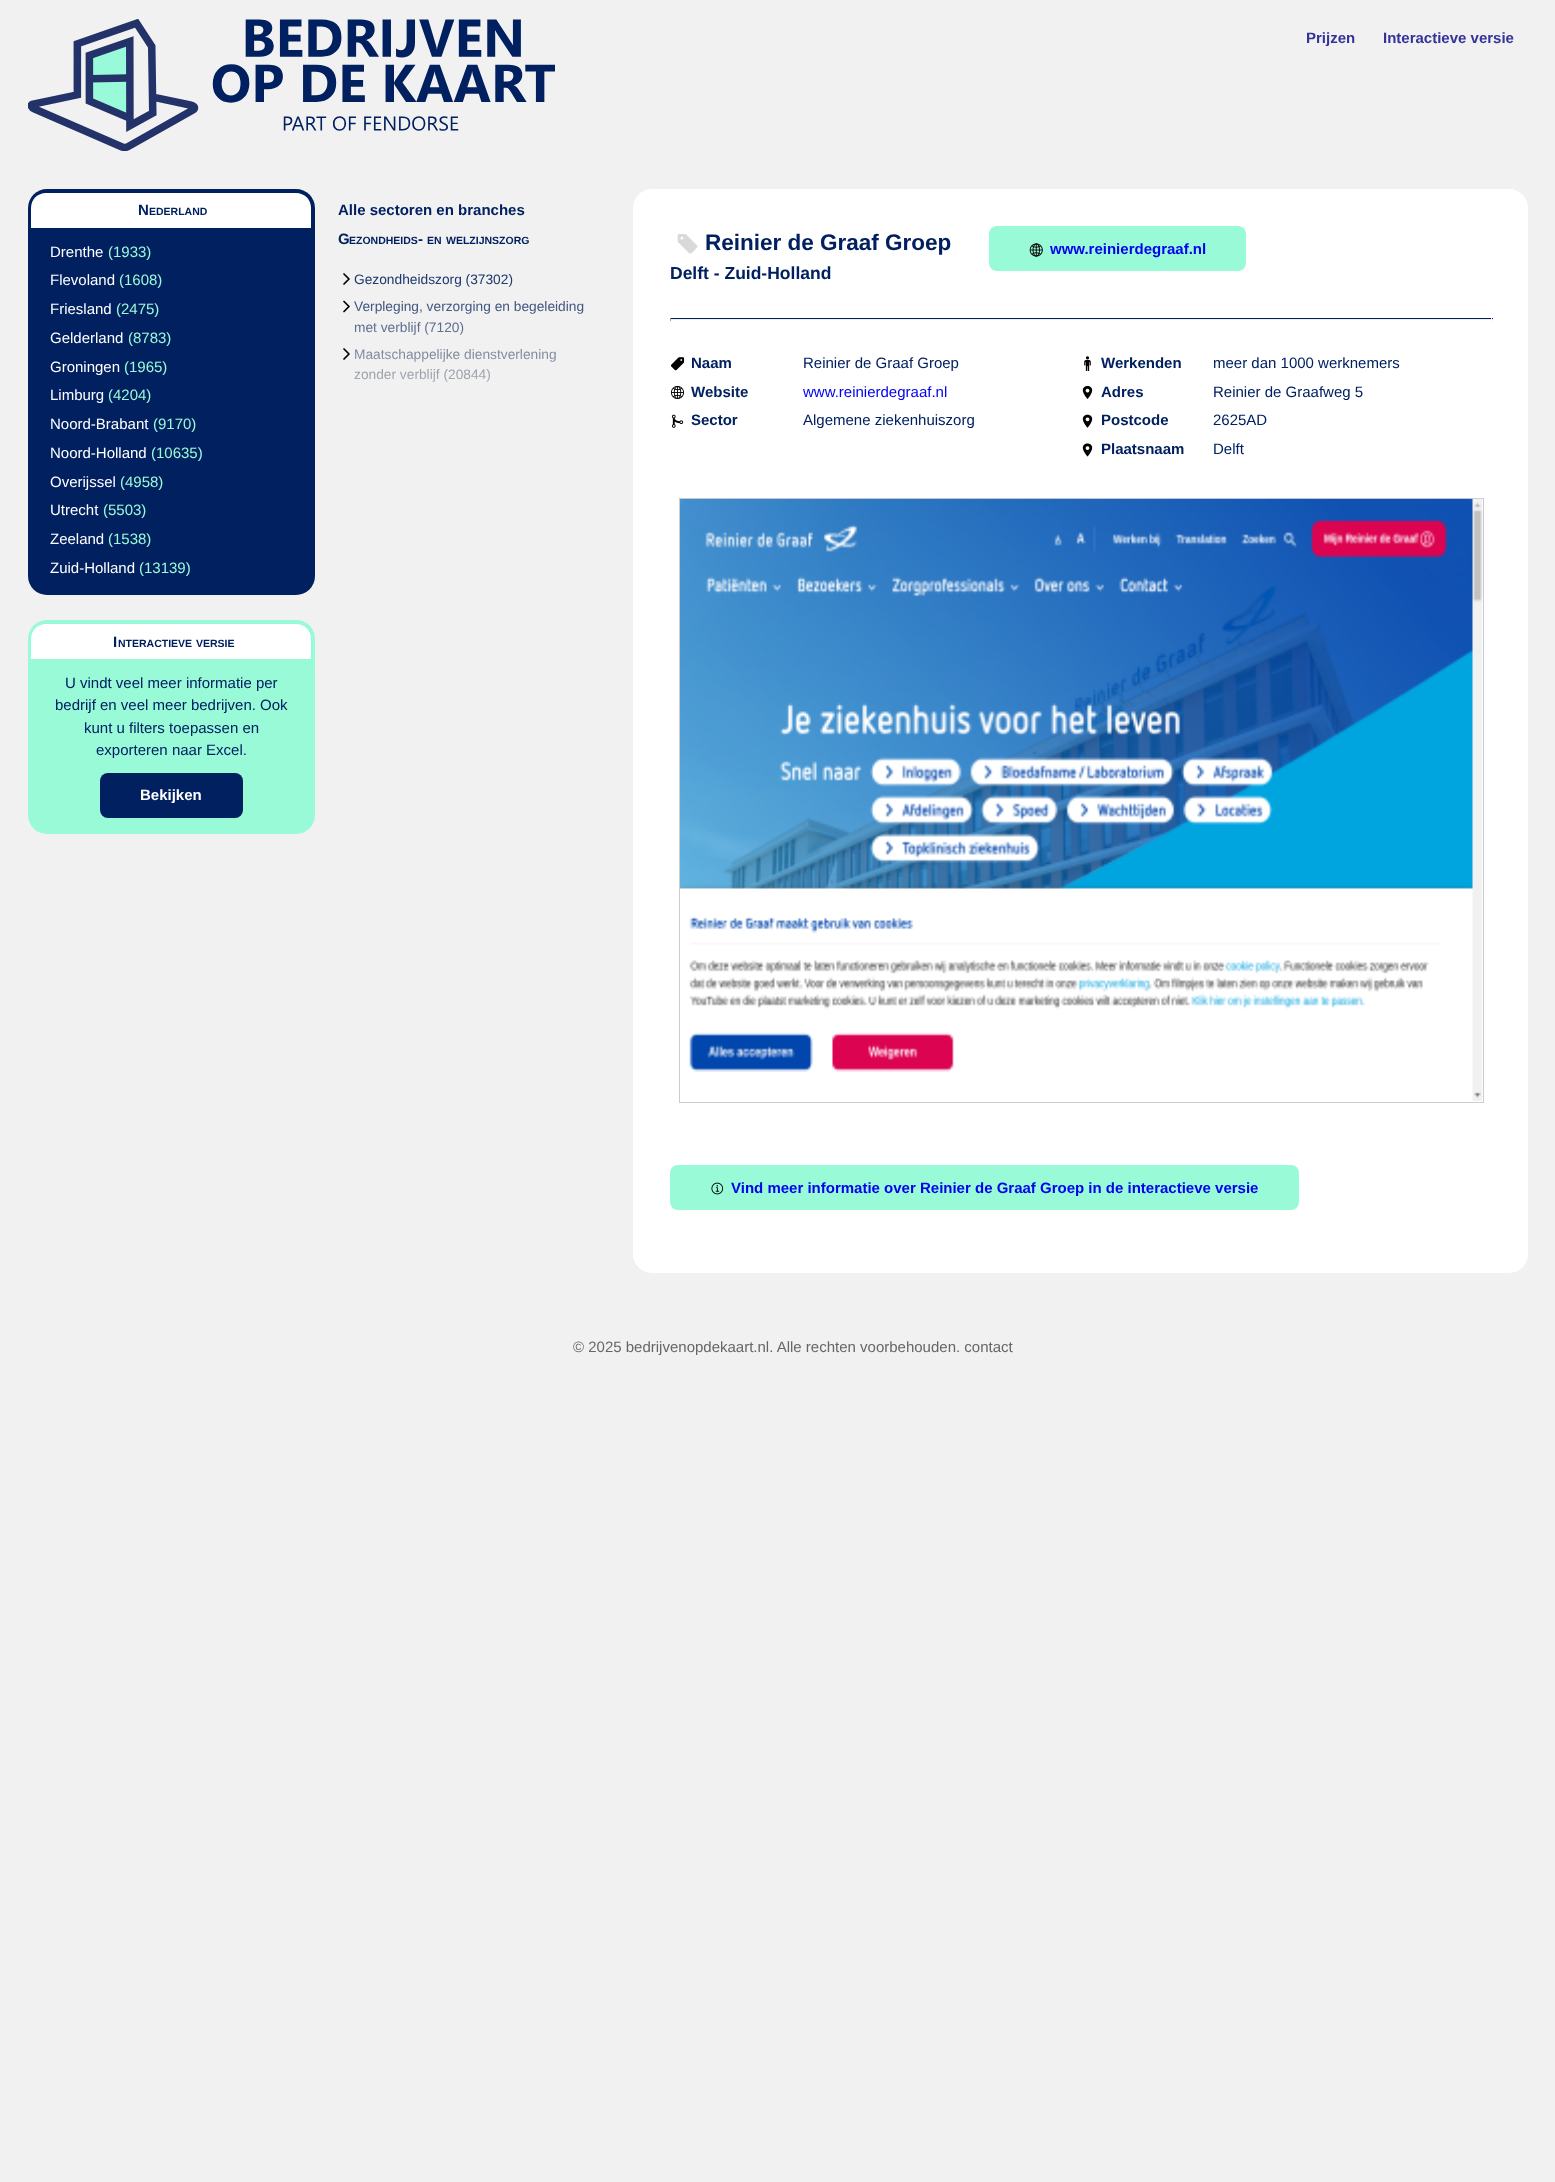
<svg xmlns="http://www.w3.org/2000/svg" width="1555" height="2182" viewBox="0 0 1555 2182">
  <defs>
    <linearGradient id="g1" gradientUnits="userSpaceOnUse" x1="471" y1="257" x2="471" y2="397"><stop offset="0" stop-color="#012060"/><stop offset="1" stop-color="#bbbbbb"/></linearGradient>
  </defs>
  <rect width="100%" height="100%" fill="#f1f1f1"/>
  <image x="28" y="19" width="527" height="132" href="img1.png"/>
  <text x="1306" y="43" font-family="Liberation Sans" font-size="15" font-weight="bold" fill="#333399">Prijzen</text>
  <text x="1383" y="43" font-family="Liberation Sans" font-size="15" font-weight="bold" fill="#333399">Interactieve versie</text>
  <rect x="28" y="189" width="287" height="406" rx="19" fill="#012060"/>
  <path d="M46 193H296C304.5 193 311 199.5 311 208V228H31V208C31 199.5 37.5 193 46 193Z" fill="#ffffff"/>
  <text x="138" y="215" font-family="Liberation Sans" font-size="15" font-weight="bold" fill="#012060">N</text>
  <text x="149" y="215" font-family="Liberation Sans" font-size="10.5" font-weight="bold" fill="#012060">EDERLAND</text>
  <text x="50" y="257" font-family="Liberation Sans" font-size="15" fill="#ffffff">Drenthe</text>
  <text x="108" y="257" font-family="Liberation Sans" font-size="15" fill="#99fad8">(1933)</text>
  <text x="50" y="285" font-family="Liberation Sans" font-size="15" fill="#ffffff">Flevoland</text>
  <text x="119" y="285" font-family="Liberation Sans" font-size="15" fill="#99fad8">(1608)</text>
  <text x="50" y="314" font-family="Liberation Sans" font-size="15" fill="#ffffff">Friesland</text>
  <text x="116" y="314" font-family="Liberation Sans" font-size="15" fill="#99fad8">(2475)</text>
  <text x="50" y="343" font-family="Liberation Sans" font-size="15" fill="#ffffff">Gelderland</text>
  <text x="128" y="343" font-family="Liberation Sans" font-size="15" fill="#99fad8">(8783)</text>
  <text x="50" y="372" font-family="Liberation Sans" font-size="15" fill="#ffffff">Groningen</text>
  <text x="124" y="372" font-family="Liberation Sans" font-size="15" fill="#99fad8">(1965)</text>
  <text x="50" y="400" font-family="Liberation Sans" font-size="15" fill="#ffffff">Limburg</text>
  <text x="108" y="400" font-family="Liberation Sans" font-size="15" fill="#99fad8">(4204)</text>
  <text x="50" y="429" font-family="Liberation Sans" font-size="15" fill="#ffffff">Noord-Brabant</text>
  <text x="153" y="429" font-family="Liberation Sans" font-size="15" fill="#99fad8">(9170)</text>
  <text x="50" y="458" font-family="Liberation Sans" font-size="15" fill="#ffffff">Noord-Holland</text>
  <text x="151" y="458" font-family="Liberation Sans" font-size="15" fill="#99fad8">(10635)</text>
  <text x="50" y="487" font-family="Liberation Sans" font-size="15" fill="#ffffff">Overijssel</text>
  <text x="120" y="487" font-family="Liberation Sans" font-size="15" fill="#99fad8">(4958)</text>
  <text x="50" y="515" font-family="Liberation Sans" font-size="15" fill="#ffffff">Utrecht</text>
  <text x="103" y="515" font-family="Liberation Sans" font-size="15" fill="#99fad8">(5503)</text>
  <text x="50" y="544" font-family="Liberation Sans" font-size="15" fill="#ffffff">Zeeland</text>
  <text x="108" y="544" font-family="Liberation Sans" font-size="15" fill="#99fad8">(1538)</text>
  <text x="50" y="573" font-family="Liberation Sans" font-size="15" fill="#ffffff">Zuid-Holland</text>
  <text x="139" y="573" font-family="Liberation Sans" font-size="15" fill="#99fad8">(13139)</text>
  <rect x="28" y="620" width="287" height="214" rx="19" fill="#99fad8"/>
  <path d="M46 624H296C304.5 624 311 630.5 311 639V659H31V639C31 630.5 37.5 624 46 624Z" fill="#ffffff"/>
  <text x="113" y="647" font-family="Liberation Sans" font-size="15" font-weight="bold" fill="#012060">I</text>
  <text x="118" y="647" font-family="Liberation Sans" font-size="10.5" font-weight="bold" fill="#012060">NTERACTIEVE</text>
  <text x="196" y="647" font-family="Liberation Sans" font-size="10.5" font-weight="bold" fill="#012060">VERSIE</text>
  <text x="65" y="688" font-family="Liberation Sans" font-size="15" fill="#012060">U vindt veel meer informatie per</text>
  <text x="55" y="710" font-family="Liberation Sans" font-size="15" fill="#012060">bedrijf en veel meer bedrijven. Ook</text>
  <text x="84" y="733" font-family="Liberation Sans" font-size="15" fill="#012060">kunt u filters toepassen en</text>
  <text x="96" y="755" font-family="Liberation Sans" font-size="15" fill="#012060">exporteren naar Excel.</text>
  <rect x="100" y="773" width="143" height="45" rx="8" fill="#012060"/>
  <text x="140" y="800" font-family="Liberation Sans" font-size="15" font-weight="bold" fill="#ffffff">Bekijken</text>
  <text x="338" y="215" font-family="Liberation Sans" font-size="15" font-weight="bold" fill="#012060">Alle sectoren en branches</text>
  <text x="338" y="244" font-family="Liberation Sans" font-size="15" font-weight="bold" fill="#012060">G</text>
  <text x="349" y="244" font-family="Liberation Sans" font-size="10.5" font-weight="bold" fill="#012060">EZONDHEIDS</text>
  <text x="418" y="244" font-family="Liberation Sans" font-size="15" font-weight="bold" fill="#012060">-</text>
  <text x="427" y="244" font-family="Liberation Sans" font-size="10.5" font-weight="bold" fill="#012060">EN</text>
  <text x="446" y="244" font-family="Liberation Sans" font-size="10.5" font-weight="bold" fill="#012060">WELZIJNSZORG</text>
  <path d="M344 274L349 279L344 284M344 301.5L349 306.5L344 311.5" fill="none" stroke="#000000" stroke-width="1.7" stroke-linecap="round" stroke-linejoin="round"/>
  <text x="354" y="284" font-family="Liberation Sans" font-size="13.75" fill="url(#g1)">Gezondheidszorg (37302)</text>
  <text x="354" y="311" font-family="Liberation Sans" font-size="13.75" fill="url(#g1)">Verpleging, verzorging en begeleiding</text>
  <text x="354" y="332" font-family="Liberation Sans" font-size="13.75" fill="url(#g1)">met verblijf (7120)</text>
  <path d="M344 349L349 354L344 359" fill="none" stroke="#000000" stroke-width="1.7" stroke-linecap="round" stroke-linejoin="round"/>
  <text x="354" y="359" font-family="Liberation Sans" font-size="13.75" fill="url(#g1)">Maatschappelijke dienstverlening</text>
  <text x="354" y="379" font-family="Liberation Sans" font-size="13.75" fill="url(#g1)">zonder verblijf (20844)</text>
  <rect x="633" y="189" width="895" height="1084" rx="19" fill="#ffffff"/>
  <image x="677" y="234" width="21" height="20" href="img2.png"/>
  <text x="705" y="250" font-family="Liberation Sans" font-size="22.5" font-weight="bold" fill="#012060">Reinier de Graaf Groep</text>
  <text x="670" y="279" font-family="Liberation Sans" font-size="17.5" font-weight="bold" fill="#012060">Delft - Zuid-Holland</text>
  <rect x="989" y="226" width="257" height="45" rx="8" fill="#99fad8"/>
  <image x="1029" y="243" width="14" height="14" href="img3.png"/>
  <text x="1050" y="254" font-family="Liberation Sans" font-size="15" font-weight="bold" fill="#0000ee">www.reinierdegraaf.nl</text>
  <rect x="670" y="318" width="823" height="1" fill="#012060"/>
  <rect x="1491" y="318" width="1" height="3" fill="#eeeeee"/>
  <rect x="670" y="319" width="823" height="1" fill="#eeeeee"/>
  <rect x="670" y="318" width="1" height="3" fill="#9f9f9f"/>
  <image x="670" y="357" width="15" height="14" href="img4.png"/>
  <text x="691" y="368" font-family="Liberation Sans" font-size="15" font-weight="bold" fill="#012060">Naam</text>
  <text x="803" y="368" font-family="Liberation Sans" font-size="15" fill="#012060">Reinier de Graaf Groep</text>
  <image x="671" y="386" width="13" height="13" href="img5.png"/>
  <text x="691" y="397" font-family="Liberation Sans" font-size="15" font-weight="bold" fill="#012060">Website</text>
  <text x="803" y="397" font-family="Liberation Sans" font-size="15" fill="#0000ee">www.reinierdegraaf.nl</text>
  <image x="671" y="414" width="13" height="14" href="img6.png"/>
  <text x="691" y="425" font-family="Liberation Sans" font-size="15" font-weight="bold" fill="#012060">Sector</text>
  <text x="803" y="425" font-family="Liberation Sans" font-size="15" fill="#012060">Algemene ziekenhuiszorg</text>
  <image x="1084" y="356" width="7" height="15" href="img7.png"/>
  <text x="1101" y="368" font-family="Liberation Sans" font-size="15" font-weight="bold" fill="#012060">Werkenden</text>
  <text x="1213" y="368" font-family="Liberation Sans" font-size="15" fill="#012060">meer dan 1000 werknemers</text>
  <image x="1082" y="385" width="11" height="14" href="img8.png"/>
  <text x="1101" y="397" font-family="Liberation Sans" font-size="15" font-weight="bold" fill="#012060">Adres</text>
  <text x="1213" y="397" font-family="Liberation Sans" font-size="15" fill="#012060">Reinier de Graafweg 5</text>
  <image x="1082" y="414" width="11" height="14" href="img9.png"/>
  <text x="1101" y="425" font-family="Liberation Sans" font-size="15" font-weight="bold" fill="#012060">Postcode</text>
  <text x="1213" y="425" font-family="Liberation Sans" font-size="15" fill="#012060">2625AD</text>
  <image x="1082" y="443" width="11" height="14" href="img10.png"/>
  <text x="1101" y="454" font-family="Liberation Sans" font-size="15" font-weight="bold" fill="#012060">Plaatsnaam</text>
  <text x="1213" y="454" font-family="Liberation Sans" font-size="15" fill="#012060">Delft</text>
  <rect x="679.5" y="498.5" width="804" height="604" fill="none" stroke="#cccccc"/>
  <image x="680" y="498" width="803" height="603" href="img11.png"/>
  <rect x="670" y="1165" width="629" height="45" rx="8" fill="#99fad8"/>
  <image x="711" y="1182" width="13" height="13" href="img12.png"/>
  <text x="731" y="1193" font-family="Liberation Sans" font-size="15" font-weight="bold" fill="#0000ee">Vind meer informatie over Reinier de Graaf Groep in de interactieve versie</text>
  <text x="573" y="1352" font-family="Liberation Sans" font-size="15" fill="#666666">© 2025 bedrijvenopdekaart.nl. Alle rechten voorbehouden. contact</text>
</svg>
